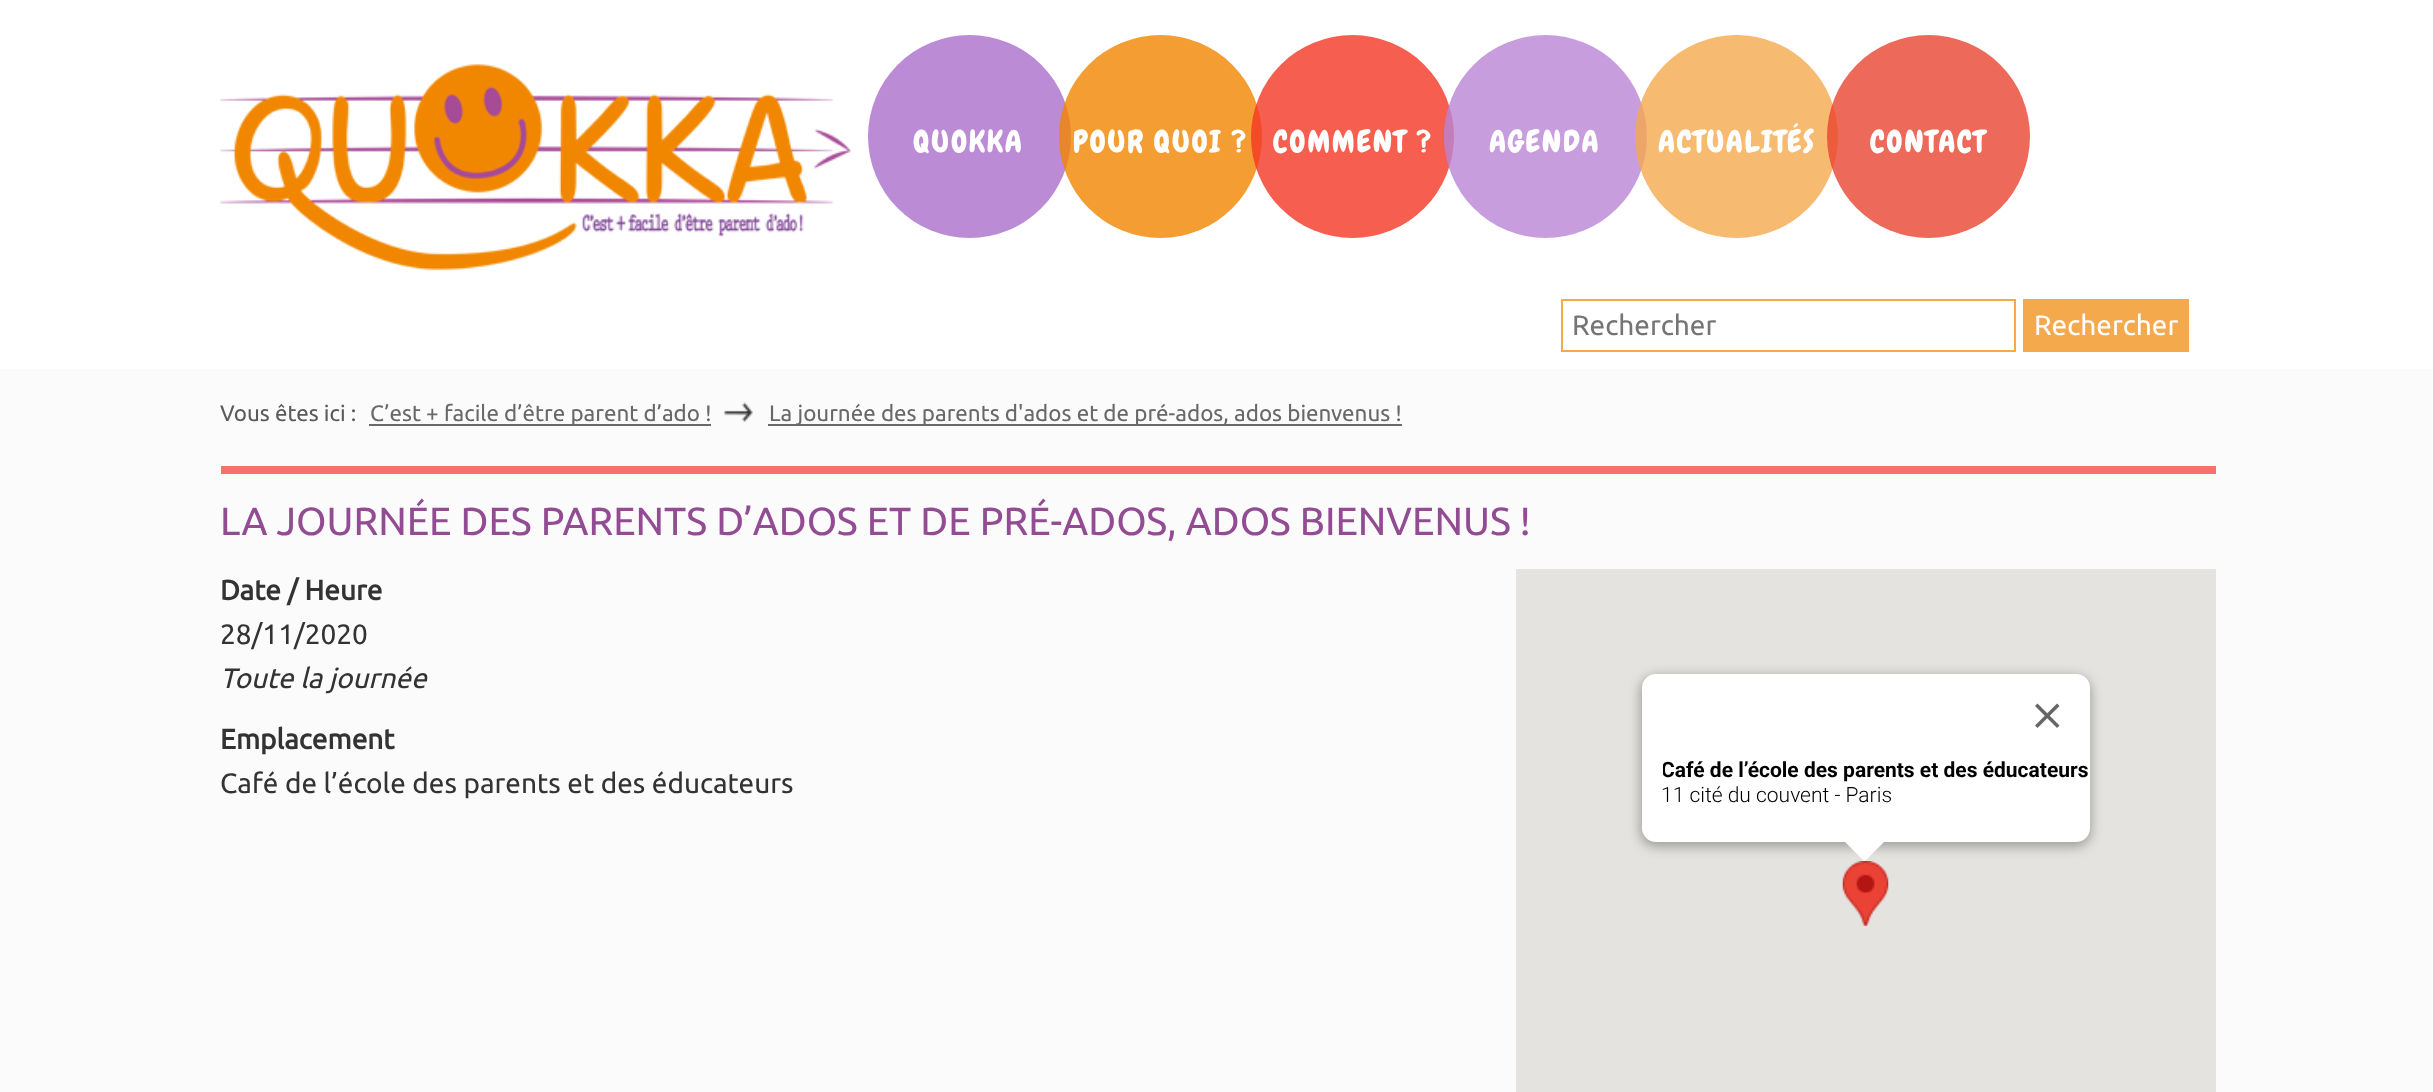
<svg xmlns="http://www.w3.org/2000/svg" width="2433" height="1092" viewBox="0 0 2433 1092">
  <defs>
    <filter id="blur1" x="-50%" y="-200%" width="200%" height="500%"><feGaussianBlur stdDeviation="6"/></filter>
    <clipPath id="clip1"><rect x="1663" y="758" width="427" height="84"/></clipPath>
  </defs>
  <rect width="100%" height="100%" fill="#ffffff"/>
  <image x="220" y="64" width="631" height="207" href="img1.png"/>
  <circle cx="969.5" cy="136.5" r="101.5" fill="#bc8bd6"/>
  <text x="913" y="152" font-family="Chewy" font-size="30.75" letter-spacing="1.75" fill="#ffffff">QUOKKA</text>
  <circle cx="1160.5" cy="136.5" r="101.5" fill="#f18500" fill-opacity="0.8"/>
  <text x="1073" y="152" font-family="Chewy" font-size="30.75" letter-spacing="1.75" fill="#ffffff">POUR QUOI ?</text>
  <circle cx="1352.5" cy="136.5" r="101.5" fill="#f43624" fill-opacity="0.8"/>
  <text x="1273" y="152" font-family="Chewy" font-size="30.75" letter-spacing="1.75" fill="#ffffff">COMMENT ?</text>
  <circle cx="1545.5" cy="136.5" r="101.5" fill="#b984d5" fill-opacity="0.8"/>
  <text x="1489" y="152" font-family="Chewy" font-size="30.75" letter-spacing="1.75" fill="#ffffff">AGENDA</text>
  <circle cx="1736.5" cy="136.5" r="101.5" fill="#f5a94d" fill-opacity="0.8"/>
  <text x="1658" y="152" font-family="Chewy" font-size="30.75" letter-spacing="1.75" fill="#ffffff">ACTUALITÉS</text>
  <circle cx="1928.5" cy="136.5" r="101.5" fill="#e84330" fill-opacity="0.8"/>
  <text x="1870" y="152" font-family="Chewy" font-size="30.75" letter-spacing="1.75" fill="#ffffff">CONTACT</text>
  <rect x="1562" y="300" width="453" height="51" fill="none" stroke="#f5a94d" stroke-width="2"/>
  <text x="1572" y="335" font-family="Ubuntu" font-size="28" fill="#757575">Rechercher</text>
  <rect x="2023" y="299" width="166" height="53" fill="#f5a94d"/>
  <text x="2034" y="335" font-family="Ubuntu" font-size="28" fill="#ffffff">Rechercher</text>
  <rect x="0" y="369" width="2433" height="723" fill="#fbfbfb"/>
  <text x="220" y="421" font-family="Ubuntu" font-size="22.4" fill="#5b5b5b">Vous êtes ici :</text>
  <rect x="369" y="424" width="342" height="2" fill="#696969"/>
  <text x="370" y="421" font-family="Ubuntu" font-size="22.4" fill="#696969">C’est + facile d’être parent d’ado !</text>
  <image x="724" y="402" width="29" height="20" href="img2.png"/>
  <rect x="768" y="424" width="634" height="2" fill="#696969"/>
  <text x="769" y="421" font-family="Ubuntu" font-size="22.4" fill="#696969">La journée des parents d'ados et de pré-ados, ados bienvenus !</text>
  <rect x="221" y="466" width="1995" height="8" fill="#f77266"/>
  <text x="220" y="535" font-family="Ubuntu" font-size="39.2" fill="#934c93">LA JOURNÉE DES PARENTS D’ADOS ET DE PRÉ-ADOS, ADOS BIENVENUS !</text>
  <text x="220" y="600" font-family="Ubuntu" font-size="28" font-weight="bold" fill="#333333">Date / Heure</text>
  <text x="220" y="644" font-family="Ubuntu" font-size="28" fill="#333333">28/11/2020</text>
  <text x="220" y="688" font-family="Ubuntu" font-size="28" font-style="italic" fill="#333333">Toute la journée</text>
  <text x="220" y="749" font-family="Ubuntu" font-size="28" font-weight="bold" fill="#333333">Emplacement</text>
  <text x="220" y="793" font-family="Ubuntu" font-size="28" fill="#333333">Café de l’école des parents et des éducateurs</text>
  <rect x="1516" y="569" width="700" height="523" fill="#e5e3df"/>
  <image x="1842" y="861" width="47" height="65" href="img4.png"/>
  <rect x="1640" y="676" width="451" height="171" rx="16" fill="#000000" fill-opacity="0.3" filter="url(#blur1)"/>
  <rect x="1642" y="674" width="448" height="168" rx="14" fill="#ffffff"/>
  <image x="2035" y="703" width="25" height="25" href="img3.png"/>
  <g clip-path="url(#clip1)">
    <text x="1661" y="777" font-family="Roboto" font-size="21" font-weight="bold" fill="#000000">Café de l’école des parents et des éducateurs</text>
  </g>
  <text x="1661" y="802" font-family="Roboto" font-size="21" font-weight="300" fill="#000000">11 cité du couvent - Paris</text>
  <path d="M1845 842V840H1886L1865 861H1864Z" fill="#ffffff"/>
</svg>
